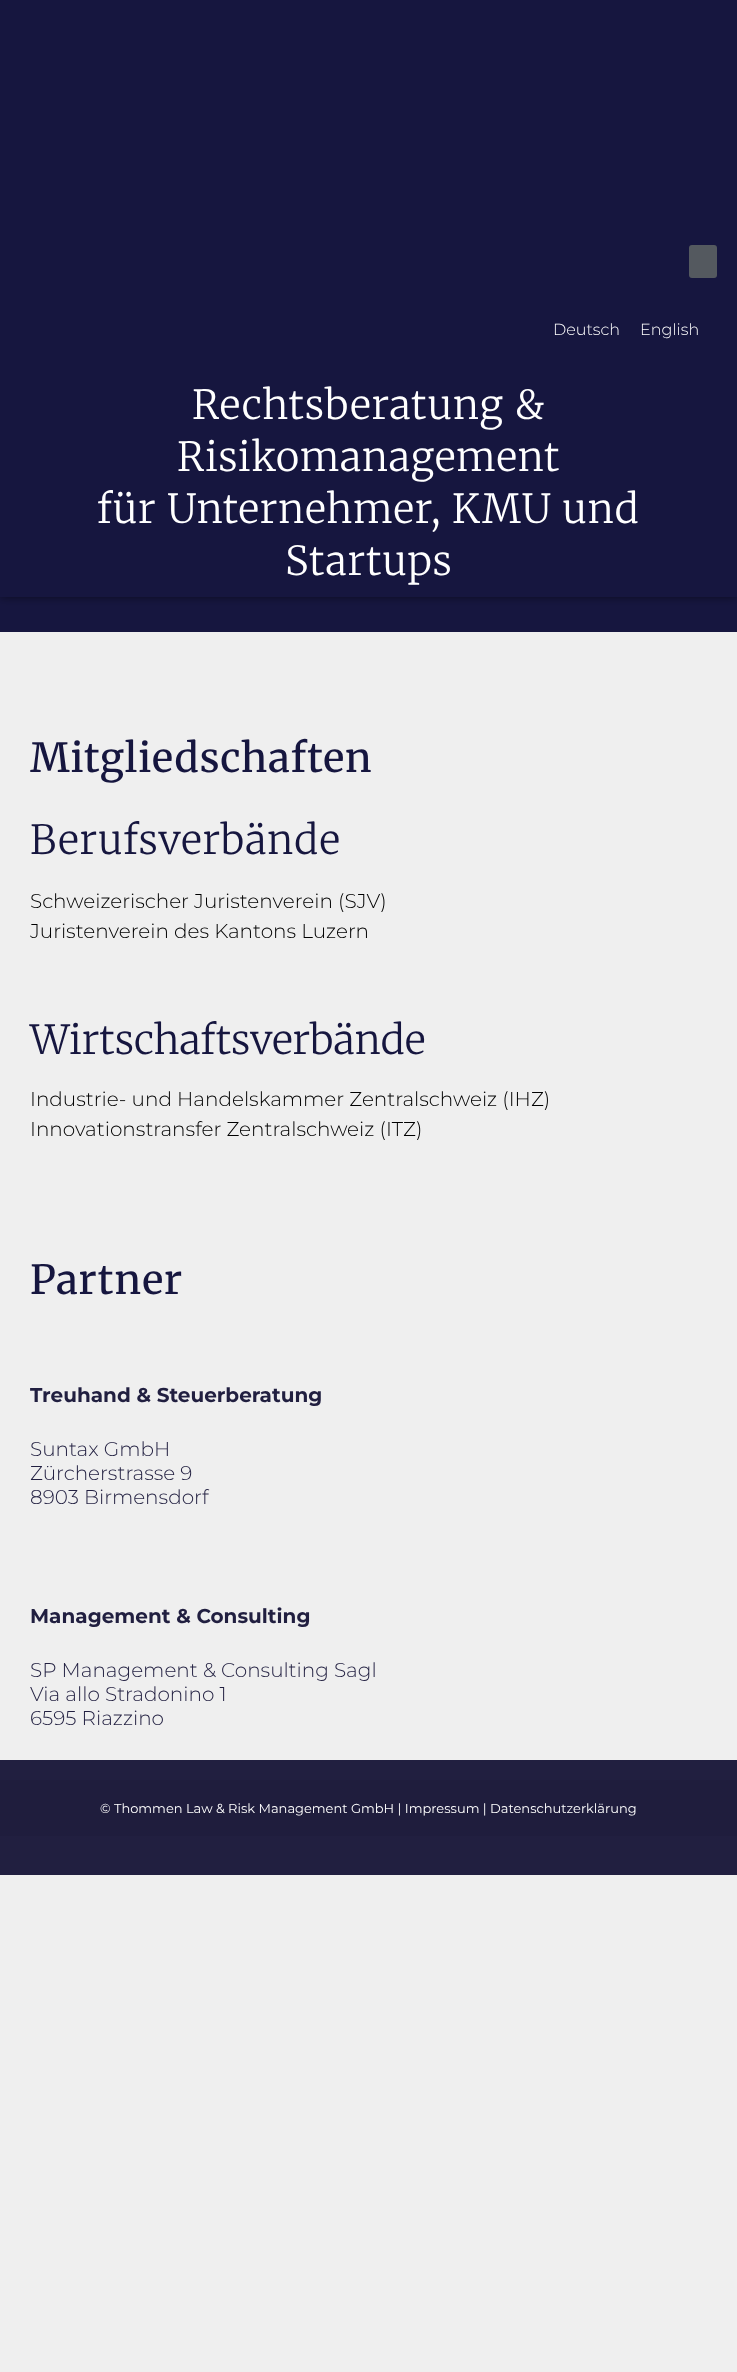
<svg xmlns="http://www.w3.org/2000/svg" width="737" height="2372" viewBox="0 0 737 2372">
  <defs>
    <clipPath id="clip1"><rect x="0" y="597" width="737" height="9"/></clipPath>
    <filter id="blur1" x="-50%" y="-200%" width="200%" height="500%"><feGaussianBlur stdDeviation="5"/></filter>
  </defs>
  <rect width="100%" height="100%" fill="#efefef"/>
  <rect x="0" y="0" width="737" height="632" fill="#16163f"/>
  <g clip-path="url(#clip1)">
    <rect x="0" y="0" width="737" height="597" fill="#000000" fill-opacity="0.5" filter="url(#blur1)"/>
  </g>
  <rect x="689" y="245" width="28" height="33" rx="3" fill="#54595f"/>
  <text x="553" y="335" font-family="Montserrat" font-size="16" font-weight="300" fill="#ffffff">Deutsch</text>
  <text x="640" y="335" font-family="Montserrat" font-size="16" font-weight="300" fill="#ffffff">English</text>
  <text x="192" y="419" font-family="Merriweather" font-size="40" font-weight="300" letter-spacing="0.9" fill="#ffffff">Rechtsberatung &amp;</text>
  <text x="177" y="471" font-family="Merriweather" font-size="40" font-weight="300" letter-spacing="0.9" fill="#ffffff">Risikomanagement</text>
  <text x="97" y="523" font-family="Merriweather" font-size="40" font-weight="300" letter-spacing="0.9" fill="#ffffff">für Unternehmer, KMU und</text>
  <text x="285" y="575" font-family="Merriweather" font-size="40" font-weight="300" letter-spacing="0.9" fill="#ffffff">Startups</text>
  <text x="30" y="772" font-family="Merriweather" font-size="40" font-weight="500" letter-spacing="0.9" fill="#16163f">Mitgliedschaften</text>
  <text x="30" y="854" font-family="Merriweather" font-size="40" font-weight="300" letter-spacing="0.9" fill="#16163f">Berufsverbände</text>
  <text x="30" y="908" font-family="Montserrat" font-size="20" font-weight="300" fill="#000000">Schweizerischer Juristenverein (SJV)</text>
  <text x="30" y="938" font-family="Montserrat" font-size="20" font-weight="300" fill="#000000">Juristenverein des Kantons Luzern</text>
  <text x="30" y="1054" font-family="Merriweather" font-size="40" font-weight="300" fill="#16163f">Wirtschaftsverbände</text>
  <text x="30" y="1106" font-family="Montserrat" font-size="20" font-weight="300" fill="#000000">Industrie- und Handelskammer Zentralschweiz (IHZ)</text>
  <text x="30" y="1136" font-family="Montserrat" font-size="20" font-weight="300" fill="#000000">Innovationstransfer Zentralschweiz (ITZ)</text>
  <text x="30" y="1294" font-family="Merriweather" font-size="40" font-weight="500" letter-spacing="0.9" fill="#16163f">Partner</text>
  <text x="30" y="1402" font-family="Montserrat" font-size="20" font-weight="bold" fill="#211f40">Treuhand &amp; Steuerberatung</text>
  <text x="30" y="1456" font-family="Montserrat" font-size="20" font-weight="300" fill="#211f40">Suntax GmbH</text>
  <text x="30" y="1480" font-family="Montserrat" font-size="20" font-weight="300" fill="#211f40">Zürcherstrasse 9</text>
  <text x="30" y="1504" font-family="Montserrat" font-size="20" font-weight="300" fill="#211f40">8903 Birmensdorf</text>
  <text x="30" y="1623" font-family="Montserrat" font-size="20" font-weight="bold" fill="#211f40">Management &amp; Consulting</text>
  <text x="30" y="1677" font-family="Montserrat" font-size="20" font-weight="300" fill="#211f40">SP Management &amp; Consulting Sagl</text>
  <text x="30" y="1701" font-family="Montserrat" font-size="20" font-weight="300" fill="#211f40">Via allo Stradonino 1</text>
  <text x="30" y="1725" font-family="Montserrat" font-size="20" font-weight="300" fill="#211f40">6595 Riazzino</text>
  <rect x="0" y="1760" width="737" height="115" fill="#211f40"/>
  <rect x="0" y="1780" width="737" height="56" fill="#1f1d3d"/>
  <text x="100" y="1813" font-family="Montserrat" font-size="13" fill="#ffffff">© Thommen Law &amp; Risk Management GmbH | Impressum | Datenschutzerklärung</text>
</svg>
